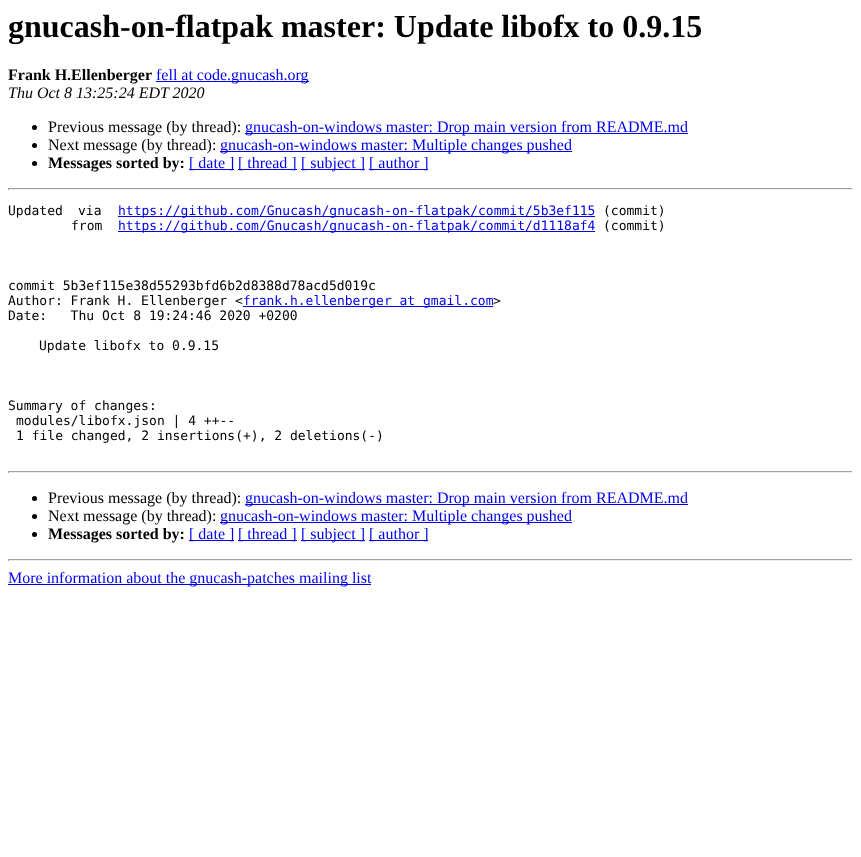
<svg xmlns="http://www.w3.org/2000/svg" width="861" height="857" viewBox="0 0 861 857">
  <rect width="100%" height="100%" fill="#ffffff"/>
  <text x="8" y="37" font-family="Liberation Serif" font-size="32" font-weight="bold" fill="#000000">gnucash-on-flatpak master: Update libofx to 0.9.15</text>
  <text x="8" y="80" font-family="Liberation Serif" font-size="16" font-weight="bold" fill="#000000">Frank H.Ellenberger</text>
  <rect x="156" y="81" width="153" height="1" fill="#0000ee"/>
  <text x="156" y="80" font-family="Liberation Serif" font-size="16" fill="#0000ee">fell at code.gnucash.org</text>
  <text x="8" y="98" font-family="Liberation Serif" font-size="16" font-style="italic" fill="#000000">Thu Oct 8 13:25:24 EDT 2020</text>
  <circle cx="34.5" cy="127.5" r="2.5" fill="#000000"/>
  <text x="48" y="132" font-family="Liberation Serif" font-size="16" fill="#000000">Previous message (by thread):</text>
  <rect x="245" y="133" width="443" height="1" fill="#0000ee"/>
  <text x="245" y="132" font-family="Liberation Serif" font-size="16" fill="#0000ee">gnucash-on-windows master: Drop main version from README.md</text>
  <circle cx="34.5" cy="145.5" r="2.5" fill="#000000"/>
  <text x="48" y="150" font-family="Liberation Serif" font-size="16" fill="#000000">Next message (by thread):</text>
  <rect x="220" y="151" width="352" height="1" fill="#0000ee"/>
  <text x="220" y="150" font-family="Liberation Serif" font-size="16" fill="#0000ee">gnucash-on-windows master: Multiple changes pushed</text>
  <circle cx="34.5" cy="163.5" r="2.5" fill="#000000"/>
  <text x="48" y="168" font-family="Liberation Serif" font-size="16" font-weight="bold" fill="#000000">Messages sorted by:</text>
  <rect x="189" y="169" width="45" height="1" fill="#0000ee"/>
  <text x="189" y="168" font-family="Liberation Serif" font-size="16" fill="#0000ee">[ date ]</text>
  <rect x="238" y="169" width="59" height="1" fill="#0000ee"/>
  <text x="238" y="168" font-family="Liberation Serif" font-size="16" fill="#0000ee">[ thread ]</text>
  <rect x="301" y="169" width="64" height="1" fill="#0000ee"/>
  <text x="301" y="168" font-family="Liberation Serif" font-size="16" fill="#0000ee">[ subject ]</text>
  <rect x="369" y="169" width="59" height="1" fill="#0000ee"/>
  <text x="369" y="168" font-family="Liberation Serif" font-size="16" fill="#0000ee">[ author ]</text>
  <rect x="8" y="188" width="845" height="1" fill="#9f9f9f"/>
  <rect x="852" y="188" width="1" height="2" fill="#eeeeee"/>
  <rect x="8" y="189" width="845" height="1" fill="#eeeeee"/>
  <rect x="8" y="188" width="1" height="2" fill="#9f9f9f"/>
  <text x="8" y="215" font-family="DejaVu Sans Mono" font-size="13" fill="#000000">Updated</text>
  <text x="78" y="215" font-family="DejaVu Sans Mono" font-size="13" fill="#000000">via</text>
  <rect x="118" y="216" width="477" height="1" fill="#0000ee"/>
  <text x="118" y="215" font-family="DejaVu Sans Mono" font-size="13" fill="#0000ee">https://github.com/Gnucash/gnucash-on-flatpak/commit/5b3ef115</text>
  <text x="603" y="215" font-family="DejaVu Sans Mono" font-size="13" fill="#000000">(commit)</text>
  <text x="71" y="230" font-family="DejaVu Sans Mono" font-size="13" fill="#000000">from</text>
  <rect x="118" y="231" width="477" height="1" fill="#0000ee"/>
  <text x="118" y="230" font-family="DejaVu Sans Mono" font-size="13" fill="#0000ee">https://github.com/Gnucash/gnucash-on-flatpak/commit/d1118af4</text>
  <text x="603" y="230" font-family="DejaVu Sans Mono" font-size="13" fill="#000000">(commit)</text>
  <text x="8" y="290" font-family="DejaVu Sans Mono" font-size="13" fill="#000000">commit 5b3ef115e38d55293bfd6b2d8388d78acd5d019c</text>
  <text x="8" y="305" font-family="DejaVu Sans Mono" font-size="13" fill="#000000">Author: Frank H. Ellenberger &lt;</text>
  <rect x="243" y="306" width="250" height="1" fill="#0000ee"/>
  <text x="243" y="305" font-family="DejaVu Sans Mono" font-size="13" fill="#0000ee">frank.h.ellenberger at gmail.com</text>
  <text x="493" y="305" font-family="DejaVu Sans Mono" font-size="13" fill="#000000">&gt;</text>
  <text x="8" y="320" font-family="DejaVu Sans Mono" font-size="13" fill="#000000" xml:space="preserve">Date:   Thu Oct 8 19:24:46 2020 +0200</text>
  <text x="39" y="350" font-family="DejaVu Sans Mono" font-size="13" fill="#000000">Update libofx to 0.9.15</text>
  <text x="8" y="410" font-family="DejaVu Sans Mono" font-size="13" fill="#000000">Summary of changes:</text>
  <text x="16" y="425" font-family="DejaVu Sans Mono" font-size="13" fill="#000000">modules/libofx.json | 4 ++--</text>
  <text x="16" y="440" font-family="DejaVu Sans Mono" font-size="13" fill="#000000">1 file changed, 2 insertions(+), 2 deletions(-)</text>
  <rect x="8" y="471" width="845" height="1" fill="#9f9f9f"/>
  <rect x="852" y="471" width="1" height="2" fill="#eeeeee"/>
  <rect x="8" y="472" width="845" height="1" fill="#eeeeee"/>
  <rect x="8" y="471" width="1" height="2" fill="#9f9f9f"/>
  <circle cx="34.5" cy="498.5" r="2.5" fill="#000000"/>
  <text x="48" y="503" font-family="Liberation Serif" font-size="16" fill="#000000">Previous message (by thread):</text>
  <rect x="245" y="504" width="443" height="1" fill="#0000ee"/>
  <text x="245" y="503" font-family="Liberation Serif" font-size="16" fill="#0000ee">gnucash-on-windows master: Drop main version from README.md</text>
  <circle cx="34.5" cy="516.5" r="2.5" fill="#000000"/>
  <text x="48" y="521" font-family="Liberation Serif" font-size="16" fill="#000000">Next message (by thread):</text>
  <rect x="220" y="522" width="352" height="1" fill="#0000ee"/>
  <text x="220" y="521" font-family="Liberation Serif" font-size="16" fill="#0000ee">gnucash-on-windows master: Multiple changes pushed</text>
  <circle cx="34.5" cy="534.5" r="2.5" fill="#000000"/>
  <text x="48" y="539" font-family="Liberation Serif" font-size="16" font-weight="bold" fill="#000000">Messages sorted by:</text>
  <rect x="189" y="540" width="45" height="1" fill="#0000ee"/>
  <text x="189" y="539" font-family="Liberation Serif" font-size="16" fill="#0000ee">[ date ]</text>
  <rect x="238" y="540" width="59" height="1" fill="#0000ee"/>
  <text x="238" y="539" font-family="Liberation Serif" font-size="16" fill="#0000ee">[ thread ]</text>
  <rect x="301" y="540" width="64" height="1" fill="#0000ee"/>
  <text x="301" y="539" font-family="Liberation Serif" font-size="16" fill="#0000ee">[ subject ]</text>
  <rect x="369" y="540" width="59" height="1" fill="#0000ee"/>
  <text x="369" y="539" font-family="Liberation Serif" font-size="16" fill="#0000ee">[ author ]</text>
  <rect x="8" y="559" width="845" height="1" fill="#9f9f9f"/>
  <rect x="852" y="559" width="1" height="2" fill="#eeeeee"/>
  <rect x="8" y="560" width="845" height="1" fill="#eeeeee"/>
  <rect x="8" y="559" width="1" height="2" fill="#9f9f9f"/>
  <rect x="8" y="584" width="363" height="1" fill="#0000ee"/>
  <text x="8" y="583" font-family="Liberation Serif" font-size="16" fill="#0000ee">More information about the gnucash-patches mailing list</text>
</svg>
